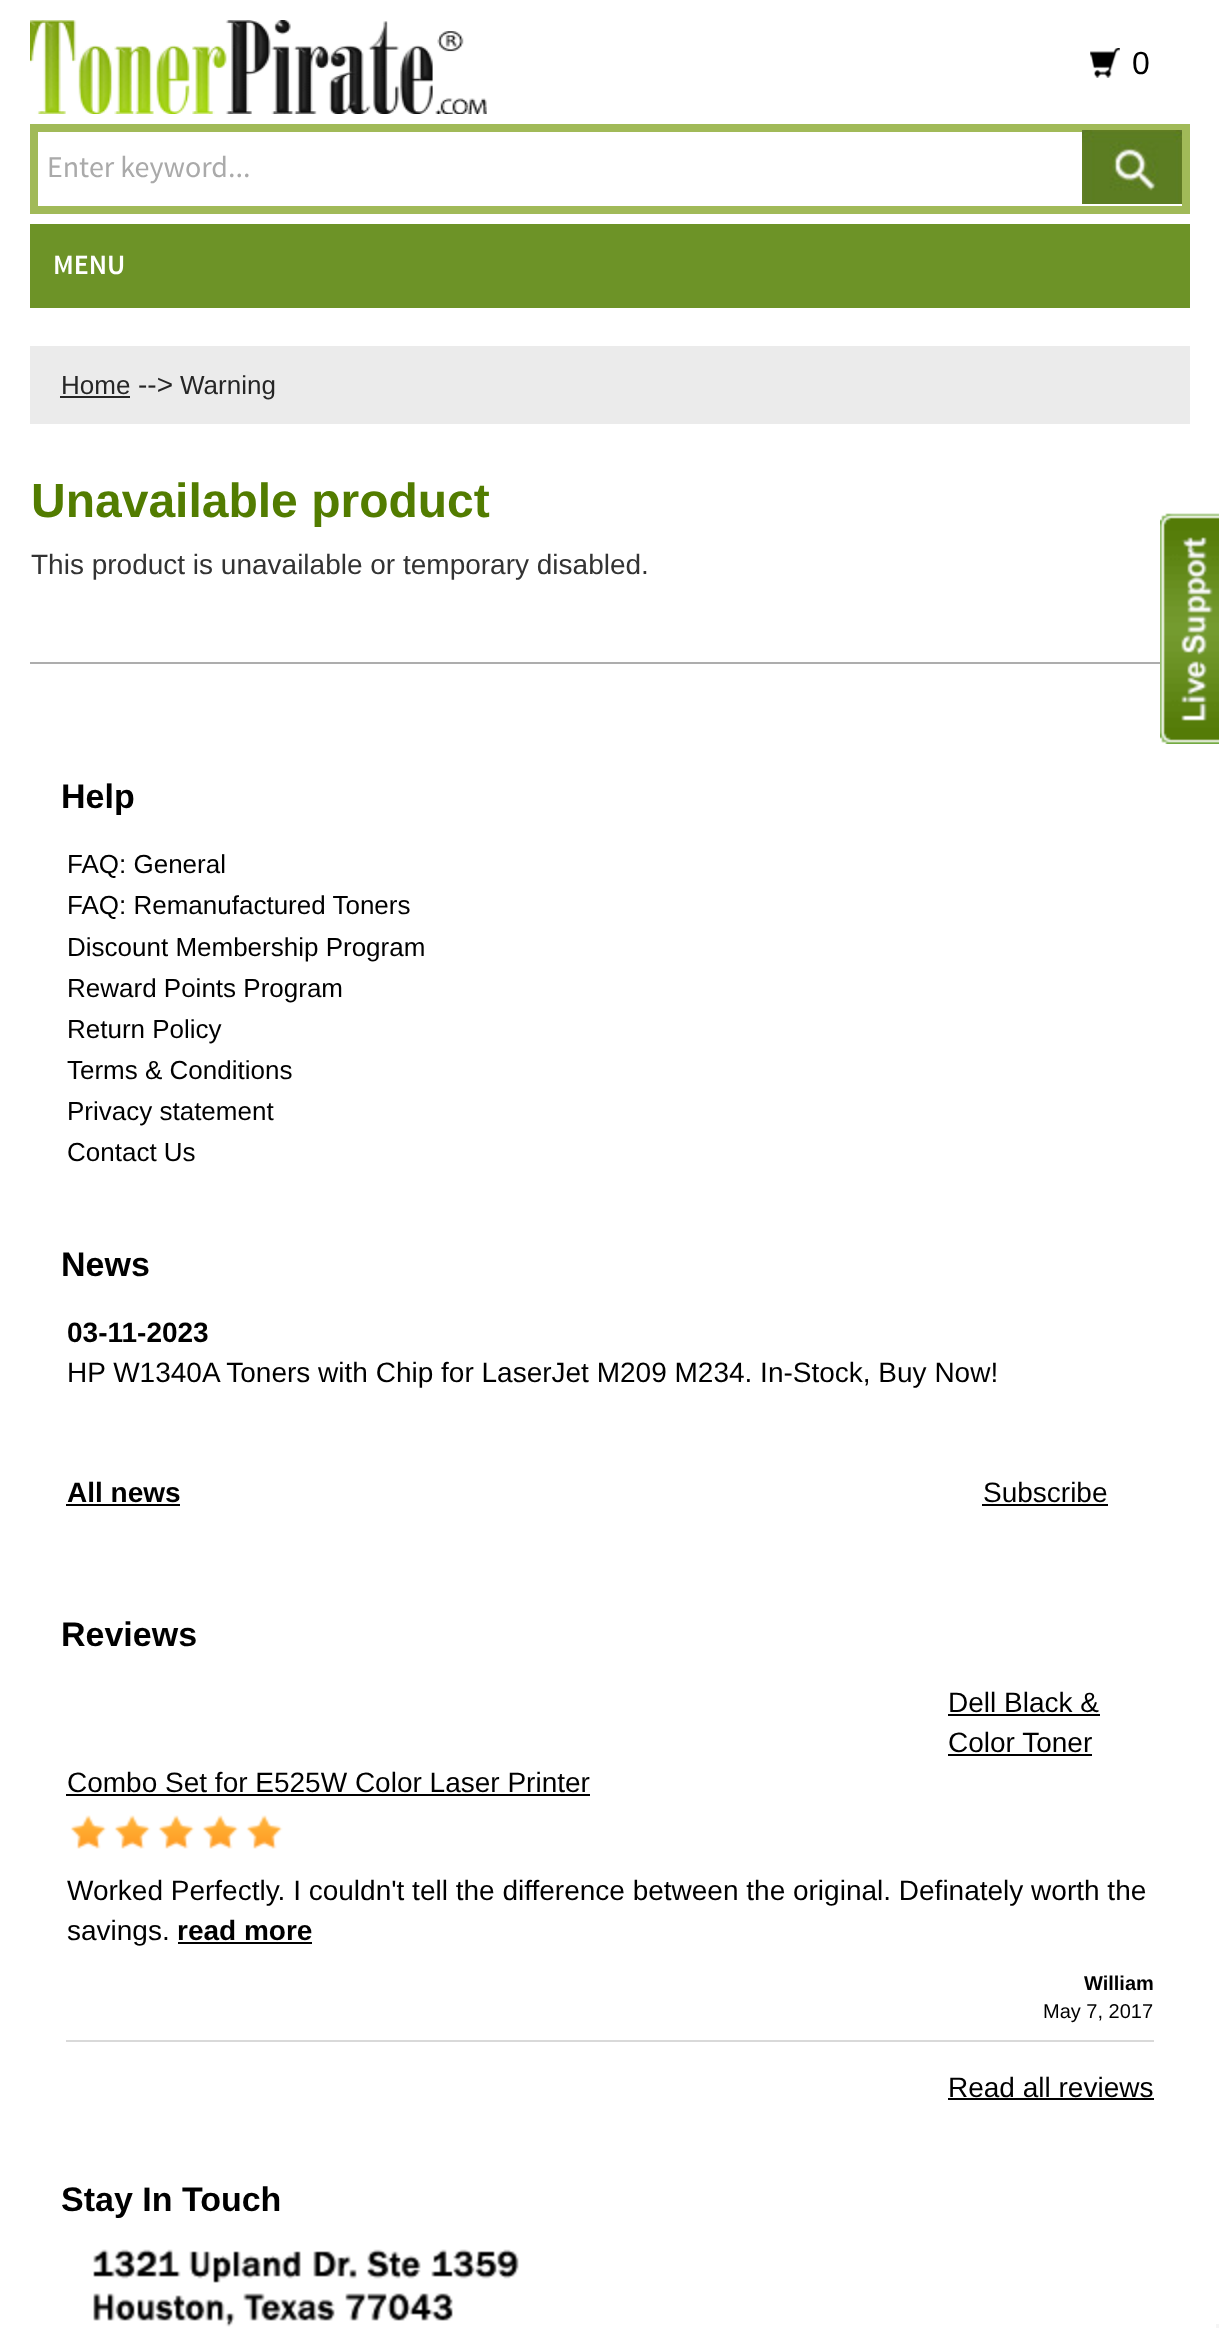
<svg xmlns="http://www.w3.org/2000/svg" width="1219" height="2328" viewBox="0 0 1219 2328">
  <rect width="100%" height="100%" fill="#ffffff"/>
  <image x="30" y="20" width="457" height="94" href="img1.png"/>
  <image x="1090" y="48" width="30" height="30" href="img2.png"/>
  <text x="1132" y="74" font-family="Liberation Sans" font-size="32" fill="#000000">0</text>
  <rect x="34" y="128" width="1152" height="82" fill="none" stroke="#a1ba58" stroke-width="8"/>
  <text x="47" y="177" font-family="Source Sans Pro" font-size="30" fill="#aaaaaa">Enter keyword...</text>
  <image x="1082" y="130" width="100" height="74" href="img3.png"/>
  <rect x="30" y="224" width="1160" height="84" fill="#6d9327"/>
  <text x="53" y="274" font-family="Source Sans Pro" font-size="28" font-weight="600" fill="#ffffff">MENU</text>
  <rect x="30" y="346" width="1160" height="78" fill="#ebebeb"/>
  <text x="61" y="394" font-family="Liberation Sans" font-size="26" fill="#262626">Home</text>
  <rect x="60" y="396" width="70" height="2" fill="#262626"/>
  <text x="138" y="394" font-family="Liberation Sans" font-size="28" fill="#262626">--&gt;</text>
  <text x="180" y="394" font-family="Liberation Sans" font-size="26" fill="#262626">Warning</text>
  <text x="31" y="517" font-family="Liberation Sans" font-size="48" font-weight="bold" fill="#527c00">Unavailable product</text>
  <text x="31" y="574" font-family="Liberation Sans" font-size="28" fill="#333333">This product is unavailable or temporary disabled.</text>
  <image x="1160" y="513" width="59" height="231" href="img4.png"/>
  <rect x="30" y="662" width="1130" height="2" fill="#adadad"/>
  <text x="61" y="808" font-family="Liberation Sans" font-size="34" font-weight="bold" fill="#000000">Help</text>
  <text x="67" y="873" font-family="Liberation Sans" font-size="26" fill="#000000">FAQ: General</text>
  <text x="67" y="914" font-family="Liberation Sans" font-size="26" fill="#000000">FAQ: Remanufactured Toners</text>
  <text x="67" y="956" font-family="Liberation Sans" font-size="26" fill="#000000">Discount Membership Program</text>
  <text x="67" y="997" font-family="Liberation Sans" font-size="26" fill="#000000">Reward Points Program</text>
  <text x="67" y="1038" font-family="Liberation Sans" font-size="26" fill="#000000">Return Policy</text>
  <text x="67" y="1079" font-family="Liberation Sans" font-size="26" fill="#000000">Terms &amp; Conditions</text>
  <text x="67" y="1120" font-family="Liberation Sans" font-size="26" fill="#000000">Privacy statement</text>
  <text x="67" y="1161" font-family="Liberation Sans" font-size="26" fill="#000000">Contact Us</text>
  <text x="61" y="1276" font-family="Liberation Sans" font-size="34" font-weight="bold" fill="#000000">News</text>
  <text x="67" y="1342" font-family="Liberation Sans" font-size="28" font-weight="bold" fill="#000000">03-11-2023</text>
  <text x="67" y="1382" font-family="Liberation Sans" font-size="28" fill="#000000">HP W1340A Toners with Chip for LaserJet M209 M234. In-Stock, Buy Now!</text>
  <text x="67" y="1502" font-family="Liberation Sans" font-size="28" font-weight="bold" fill="#000000">All news</text>
  <rect x="66" y="1504" width="114" height="2" fill="#000000"/>
  <text x="983" y="1502" font-family="Liberation Sans" font-size="28" fill="#000000">Subscribe</text>
  <rect x="982" y="1504" width="126" height="2" fill="#000000"/>
  <text x="61" y="1646" font-family="Liberation Sans" font-size="34" font-weight="bold" fill="#000000">Reviews</text>
  <text x="948" y="1712" font-family="Liberation Sans" font-size="28" fill="#000000">Dell Black &amp;</text>
  <rect x="948" y="1714" width="152" height="2" fill="#000000"/>
  <text x="948" y="1752" font-family="Liberation Sans" font-size="28" fill="#000000">Color Toner</text>
  <rect x="948" y="1754" width="144" height="2" fill="#000000"/>
  <text x="67" y="1792" font-family="Liberation Sans" font-size="28" fill="#000000">Combo Set for E525W Color Laser Printer</text>
  <rect x="66" y="1794" width="524" height="2" fill="#000000"/>
  <image x="70" y="1815" width="37" height="34" href="img5.png"/>
  <image x="114" y="1815" width="37" height="34" href="img5.png"/>
  <image x="158" y="1815" width="37" height="34" href="img5.png"/>
  <image x="202" y="1815" width="37" height="34" href="img5.png"/>
  <image x="246" y="1815" width="37" height="34" href="img5.png"/>
  <text x="67" y="1900" font-family="Liberation Sans" font-size="28" fill="#000000">Worked Perfectly. I couldn't tell the difference between the original. Definately worth the</text>
  <text x="67" y="1940" font-family="Liberation Sans" font-size="28" fill="#000000">savings.</text>
  <text x="177" y="1940" font-family="Liberation Sans" font-size="28" font-weight="bold" fill="#000000">read more</text>
  <rect x="178" y="1942" width="134" height="2" fill="#000000"/>
  <text x="1084" y="1990" font-family="Liberation Sans" font-size="20" font-weight="bold" fill="#000000">William</text>
  <text x="1043" y="2018" font-family="Liberation Sans" font-size="20" fill="#000000">May 7, 2017</text>
  <rect x="66" y="2040" width="1088" height="2" fill="#d9d9d9"/>
  <text x="948" y="2097" font-family="Liberation Sans" font-size="28" fill="#000000">Read all reviews</text>
  <rect x="948" y="2098" width="206" height="2" fill="#000000"/>
  <text x="61" y="2211" font-family="Liberation Sans" font-size="34" font-weight="bold" fill="#000000">Stay In Touch</text>
  <image x="93" y="2249" width="426" height="78" href="img6.png"/>
  <rect x="1216" y="2324" width="3" height="4" fill="#f5f5f5"/>
</svg>
